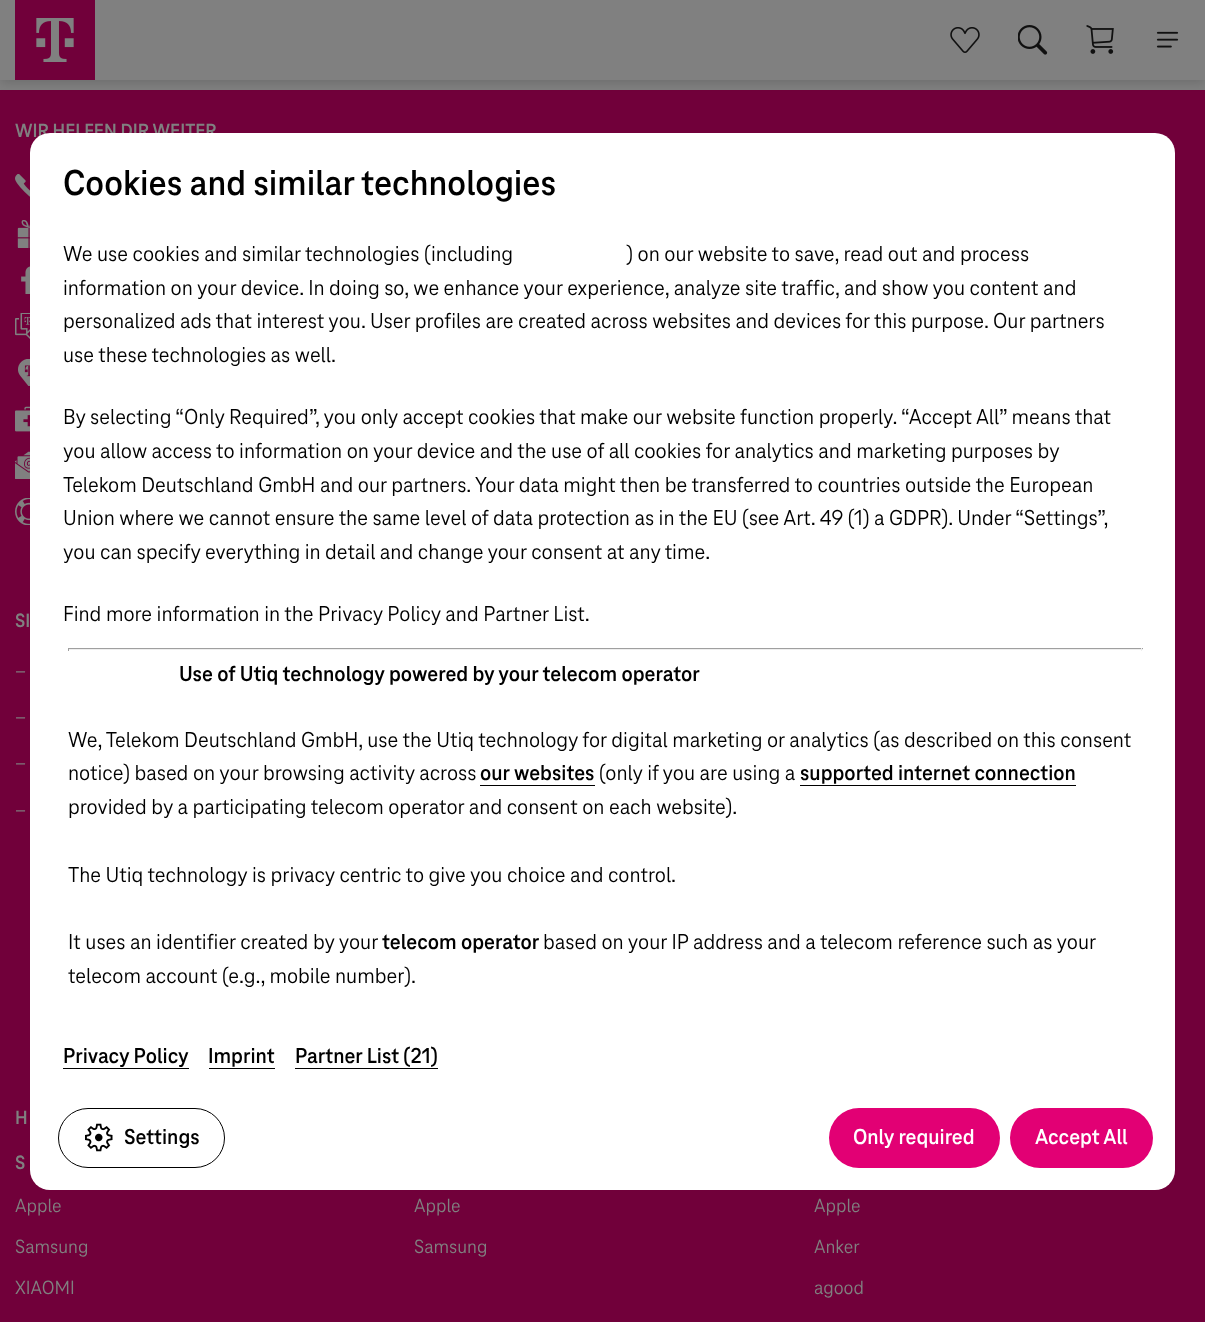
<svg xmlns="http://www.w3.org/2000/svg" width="1205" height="1322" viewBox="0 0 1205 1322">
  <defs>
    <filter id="blur1" x="-50%" y="-200%" width="200%" height="500%"><feGaussianBlur stdDeviation="5.5"/></filter>
  </defs>
  <rect width="100%" height="100%" fill="#808080"/>
  <rect x="0" y="90" width="1205" height="1232" fill="#71003a"/>
  <rect x="0" y="3" width="1205" height="80" fill="#000000" fill-opacity="0.15" filter="url(#blur1)"/>
  <rect x="0" y="0" width="1205" height="80" fill="#808080"/>
  <image x="15" y="0" width="80" height="80" href="img1.png"/>
  <image x="950" y="27" width="30" height="26" href="img2.png"/>
  <image x="1018" y="25" width="30" height="30" href="img3.png"/>
  <image x="1086" y="25" width="28" height="29" href="img4.png"/>
  <image x="1156" y="31" width="23" height="17" href="img5.png"/>
  <text x="15" y="137" font-family="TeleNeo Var" font-size="20" font-weight="bold" fill="#808080">WIR HELFEN DIR WEITER</text>
  <image x="15" y="174" width="15" height="23" href="img6.png"/>
  <image x="17" y="220" width="13" height="28" href="img7.png"/>
  <image x="21" y="266" width="9" height="28" href="img8.png"/>
  <image x="15" y="313" width="15" height="26" href="img9.png"/>
  <image x="18" y="359" width="12" height="27" href="img10.png"/>
  <image x="15" y="406" width="15" height="26" href="img11.png"/>
  <image x="15" y="451" width="15" height="28" href="img12.png"/>
  <image x="15" y="498" width="15" height="27" href="img13.png"/>
  <text x="15" y="627" font-family="TeleNeo Var" font-size="20" font-weight="bold" fill="#808080">SI</text>
  <text x="15" y="677" font-family="TeleNeo Var" font-size="20" fill="#808080">–</text>
  <text x="15" y="723" font-family="TeleNeo Var" font-size="20" fill="#808080">–</text>
  <text x="15" y="769" font-family="TeleNeo Var" font-size="20" fill="#808080">–</text>
  <text x="15" y="816" font-family="TeleNeo Var" font-size="20" fill="#808080">–</text>
  <text x="15" y="1124" font-family="TeleNeo Var" font-size="20" font-weight="bold" fill="#808080">H</text>
  <text x="15" y="1169" font-family="TeleNeo Var" font-size="20" font-weight="bold" fill="#808080">S</text>
  <text x="15" y="1212" font-family="TeleNeo Var" font-size="20" fill="#808080">Apple</text>
  <text x="15" y="1253" font-family="TeleNeo Var" font-size="20" fill="#808080">Samsung</text>
  <text x="15" y="1294" font-family="TeleNeo Var" font-size="20" fill="#808080">XIAOMI</text>
  <text x="414" y="1212" font-family="TeleNeo Var" font-size="20" fill="#808080">Apple</text>
  <text x="414" y="1253" font-family="TeleNeo Var" font-size="20" fill="#808080">Samsung</text>
  <text x="814" y="1212" font-family="TeleNeo Var" font-size="20" fill="#808080">Apple</text>
  <text x="814" y="1253" font-family="TeleNeo Var" font-size="20" fill="#808080">Anker</text>
  <text x="814" y="1294" font-family="TeleNeo Var" font-size="20" fill="#808080">agood</text>
  <rect x="30" y="133" width="1145" height="1057" rx="20" fill="#ffffff"/>
  <text x="63" y="195" font-family="'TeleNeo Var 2'" font-size="37.5" font-weight="bold" fill="#000000">Cookies and similar technologies</text>
  <text x="63" y="261" font-family="TeleNeo Var" font-size="22.5" fill="#000000">We use cookies and similar technologies (including</text>
  <text x="626" y="261" font-family="TeleNeo Var" font-size="22.5" fill="#000000">) on our website to save, read out and process</text>
  <text x="63" y="295" font-family="TeleNeo Var" font-size="22.5" fill="#000000">information on your device. In doing so, we enhance your experience, analyze site traffic, and show you content and</text>
  <text x="63" y="328" font-family="TeleNeo Var" font-size="22.5" fill="#000000">personalized ads that interest you. User profiles are created across websites and devices for this purpose. Our partners</text>
  <text x="63" y="362" font-family="TeleNeo Var" font-size="22.5" fill="#000000">use these technologies as well.</text>
  <text x="63" y="424" font-family="TeleNeo Var" font-size="22.5" fill="#000000">By selecting “Only Required”, you only accept cookies that make our website function properly. “Accept All” means that</text>
  <text x="63" y="458" font-family="TeleNeo Var" font-size="22.5" fill="#000000">you allow access to information on your device and the use of all cookies for analytics and marketing purposes by</text>
  <text x="63" y="492" font-family="TeleNeo Var" font-size="22.5" fill="#000000">Telekom Deutschland GmbH and our partners. Your data might then be transferred to countries outside the European</text>
  <text x="63" y="525" font-family="TeleNeo Var" font-size="22.5" fill="#000000">Union where we cannot ensure the same level of data protection as in the EU (see Art. 49 (1) a GDPR). Under “Settings”,</text>
  <text x="63" y="559" font-family="TeleNeo Var" font-size="22.5" fill="#000000">you can specify everything in detail and change your consent at any time.</text>
  <text x="63" y="621" font-family="TeleNeo Var" font-size="22.5" fill="#000000">Find more information in the Privacy Policy and Partner List.</text>
  <rect x="68" y="648" width="1075" height="1" fill="#9f9f9f"/>
  <rect x="1141" y="648" width="1" height="3" fill="#eeeeee"/>
  <rect x="68" y="649" width="1075" height="1" fill="#eeeeee"/>
  <rect x="68" y="648" width="1" height="3" fill="#9f9f9f"/>
  <text x="179" y="681" font-family="TeleNeo Var" font-size="22.5" font-weight="bold" fill="#000000">Use of Utiq technology powered by your telecom operator</text>
  <text x="68" y="747" font-family="TeleNeo Var" font-size="22.5" fill="#000000">We, Telekom Deutschland GmbH, use the Utiq technology for digital marketing or analytics (as described on this consent</text>
  <text x="68" y="780" font-family="TeleNeo Var" font-size="22.5" fill="#000000">notice) based on your browsing activity across</text>
  <text x="480" y="780" font-family="'TeleNeo Var 2'" font-size="22.5" font-weight="bold" fill="#000000">our websites</text>
  <rect x="480" y="785" width="115" height="1" fill="#000000"/>
  <text x="599" y="780" font-family="TeleNeo Var" font-size="22.5" fill="#000000">(only if you are using a</text>
  <text x="800" y="780" font-family="'TeleNeo Var 2'" font-size="22.5" font-weight="bold" fill="#000000">supported internet connection</text>
  <rect x="800" y="785" width="276" height="1" fill="#000000"/>
  <text x="68" y="814" font-family="TeleNeo Var" font-size="22.5" fill="#000000">provided by a participating telecom operator and consent on each website).</text>
  <text x="68" y="882" font-family="TeleNeo Var" font-size="22.5" fill="#000000">The Utiq technology is privacy centric to give you choice and control.</text>
  <text x="68" y="949" font-family="TeleNeo Var" font-size="22.5" fill="#000000">It uses an identifier created by your</text>
  <text x="382" y="949" font-family="TeleNeo Var" font-size="22.5" font-weight="bold" fill="#000000">telecom operator</text>
  <text x="543" y="949" font-family="TeleNeo Var" font-size="22.5" fill="#000000">based on your IP address and a telecom reference such as your</text>
  <text x="68" y="983" font-family="TeleNeo Var" font-size="22.5" fill="#000000">telecom account (e.g., mobile number).</text>
  <text x="63" y="1063" font-family="'TeleNeo Var 2'" font-size="22.5" font-weight="bold" fill="#000000">Privacy Policy</text>
  <rect x="63" y="1068" width="126" height="1" fill="#000000"/>
  <text x="208" y="1063" font-family="'TeleNeo Var 2'" font-size="22.5" font-weight="bold" fill="#000000">Imprint</text>
  <rect x="209" y="1068" width="66" height="1" fill="#000000"/>
  <text x="295" y="1063" font-family="'TeleNeo Var 2'" font-size="22.5" font-weight="bold" fill="#000000">Partner List (21)</text>
  <rect x="295" y="1068" width="143" height="1" fill="#000000"/>
  <rect x="58.5" y="1108.5" width="166" height="59" rx="29.5" fill="none" stroke="#000000"/>
  <image x="85" y="1123" width="28" height="29" href="img14.png"/>
  <text x="124" y="1144" font-family="'TeleNeo Var 2'" font-size="22.5" font-weight="bold" fill="#000000">Settings</text>
  <rect x="829" y="1108" width="171" height="60" rx="30" fill="#e20074"/>
  <text x="853" y="1144" font-family="'TeleNeo Var 2'" font-size="22.5" font-weight="bold" fill="#ffffff">Only required</text>
  <rect x="1010" y="1108" width="143" height="60" rx="30" fill="#e20074"/>
  <text x="1035" y="1144" font-family="'TeleNeo Var 2'" font-size="22.5" font-weight="bold" fill="#ffffff">Accept All</text>
</svg>
